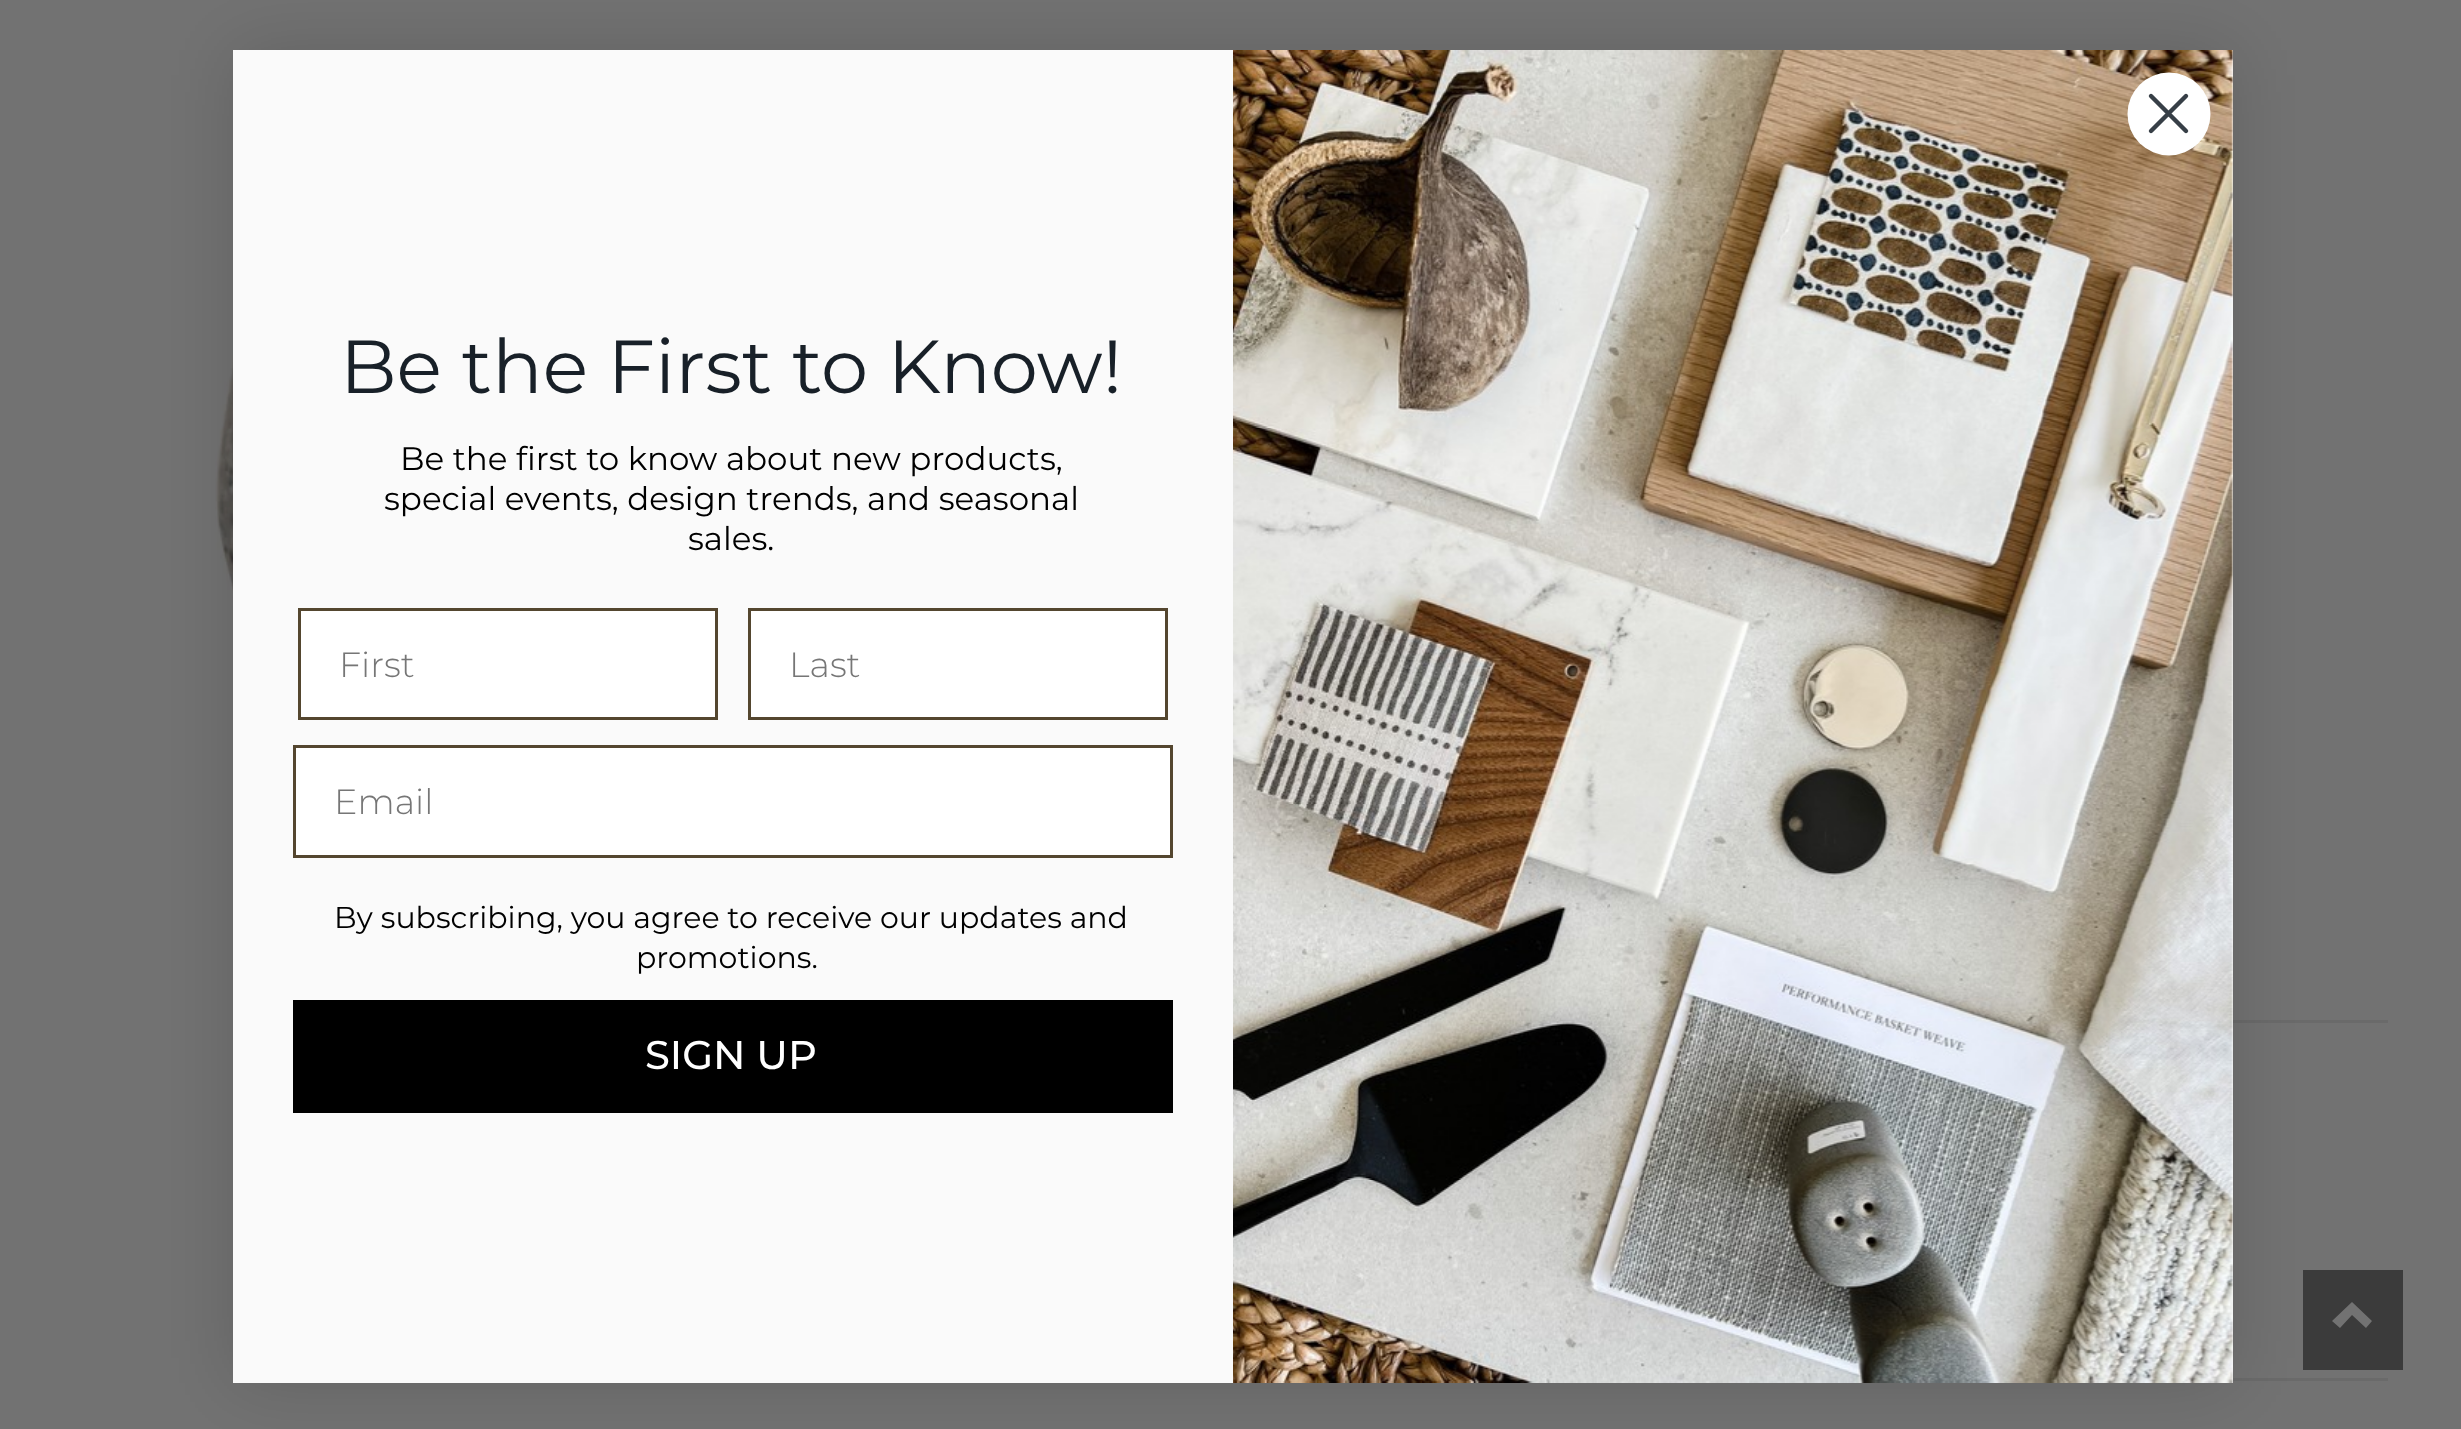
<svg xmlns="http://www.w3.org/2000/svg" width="2461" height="1429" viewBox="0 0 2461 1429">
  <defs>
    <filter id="blur1" x="-50%" y="-200%" width="200%" height="500%"><feGaussianBlur stdDeviation="37.5"/></filter>
  </defs>
  <rect width="100%" height="100%" fill="#727272"/>
  <image x="215" y="114" width="18" height="703" href="img1.png"/>
  <rect x="2233" y="1020" width="155" height="3" fill="#6a6a6a"/>
  <rect x="2233" y="1378" width="155" height="3" fill="#6a6a6a"/>
  <rect x="2303" y="1270" width="100" height="100" fill="#3b3b3b"/>
  <path d="M2332 1321L2340 1328L2352 1315L2366 1328L2372 1321L2352 1302Z" fill="#727272"/>
  <rect x="233" y="50" width="2000" height="1333" fill="#000000" fill-opacity="0.15" filter="url(#blur1)"/>
  <rect x="233" y="50" width="2000" height="1333" fill="#fafafa"/>
  <image x="1233" y="50" width="1000" height="1333" href="img2.png"/>
  <circle cx="2169" cy="114" r="41.5" fill="#ffffff"/>
  <path d="M2151 96L2186 131M2151 131L2186 96Z" fill="none" stroke="#373f47" stroke-width="4.4" stroke-linecap="round" stroke-linejoin="round"/>
  <text x="340" y="393" font-family="Montserrat" font-size="75" fill="#182028">Be the First to Know!</text>
  <text x="400" y="470" font-family="Montserrat" font-size="32.5" fill="#000000">Be the first to know about new products,</text>
  <text x="384" y="510" font-family="Montserrat" font-size="32.5" fill="#000000">special events, design trends, and seasonal</text>
  <text x="688" y="550" font-family="Montserrat" font-size="32.5" fill="#000000">sales.</text>
  <rect x="299.5" y="609.5" width="417" height="109" fill="#ffffff" stroke="#54462f" stroke-width="3"/>
  <text x="339" y="677" font-family="Montserrat" font-size="35" font-weight="300" fill="#767676">First</text>
  <rect x="749.5" y="609.5" width="417" height="109" fill="#ffffff" stroke="#54462f" stroke-width="3"/>
  <text x="789" y="677" font-family="Montserrat" font-size="35" font-weight="300" fill="#767676">Last</text>
  <rect x="294.5" y="746.5" width="877" height="110" fill="#ffffff" stroke="#54462f" stroke-width="3"/>
  <text x="334" y="814" font-family="Montserrat" font-size="35" font-weight="300" fill="#767676">Email</text>
  <text x="334" y="928" font-family="Montserrat" font-size="30" fill="#000000">By subscribing, you agree to receive our updates and</text>
  <text x="636" y="968" font-family="Montserrat" font-size="30" fill="#000000">promotions.</text>
  <rect x="293" y="1000" width="880" height="113" fill="#000000"/>
  <text x="645" y="1069" font-family="Montserrat" font-size="40" font-weight="500" fill="#ffffff">SIGN UP</text>
</svg>
